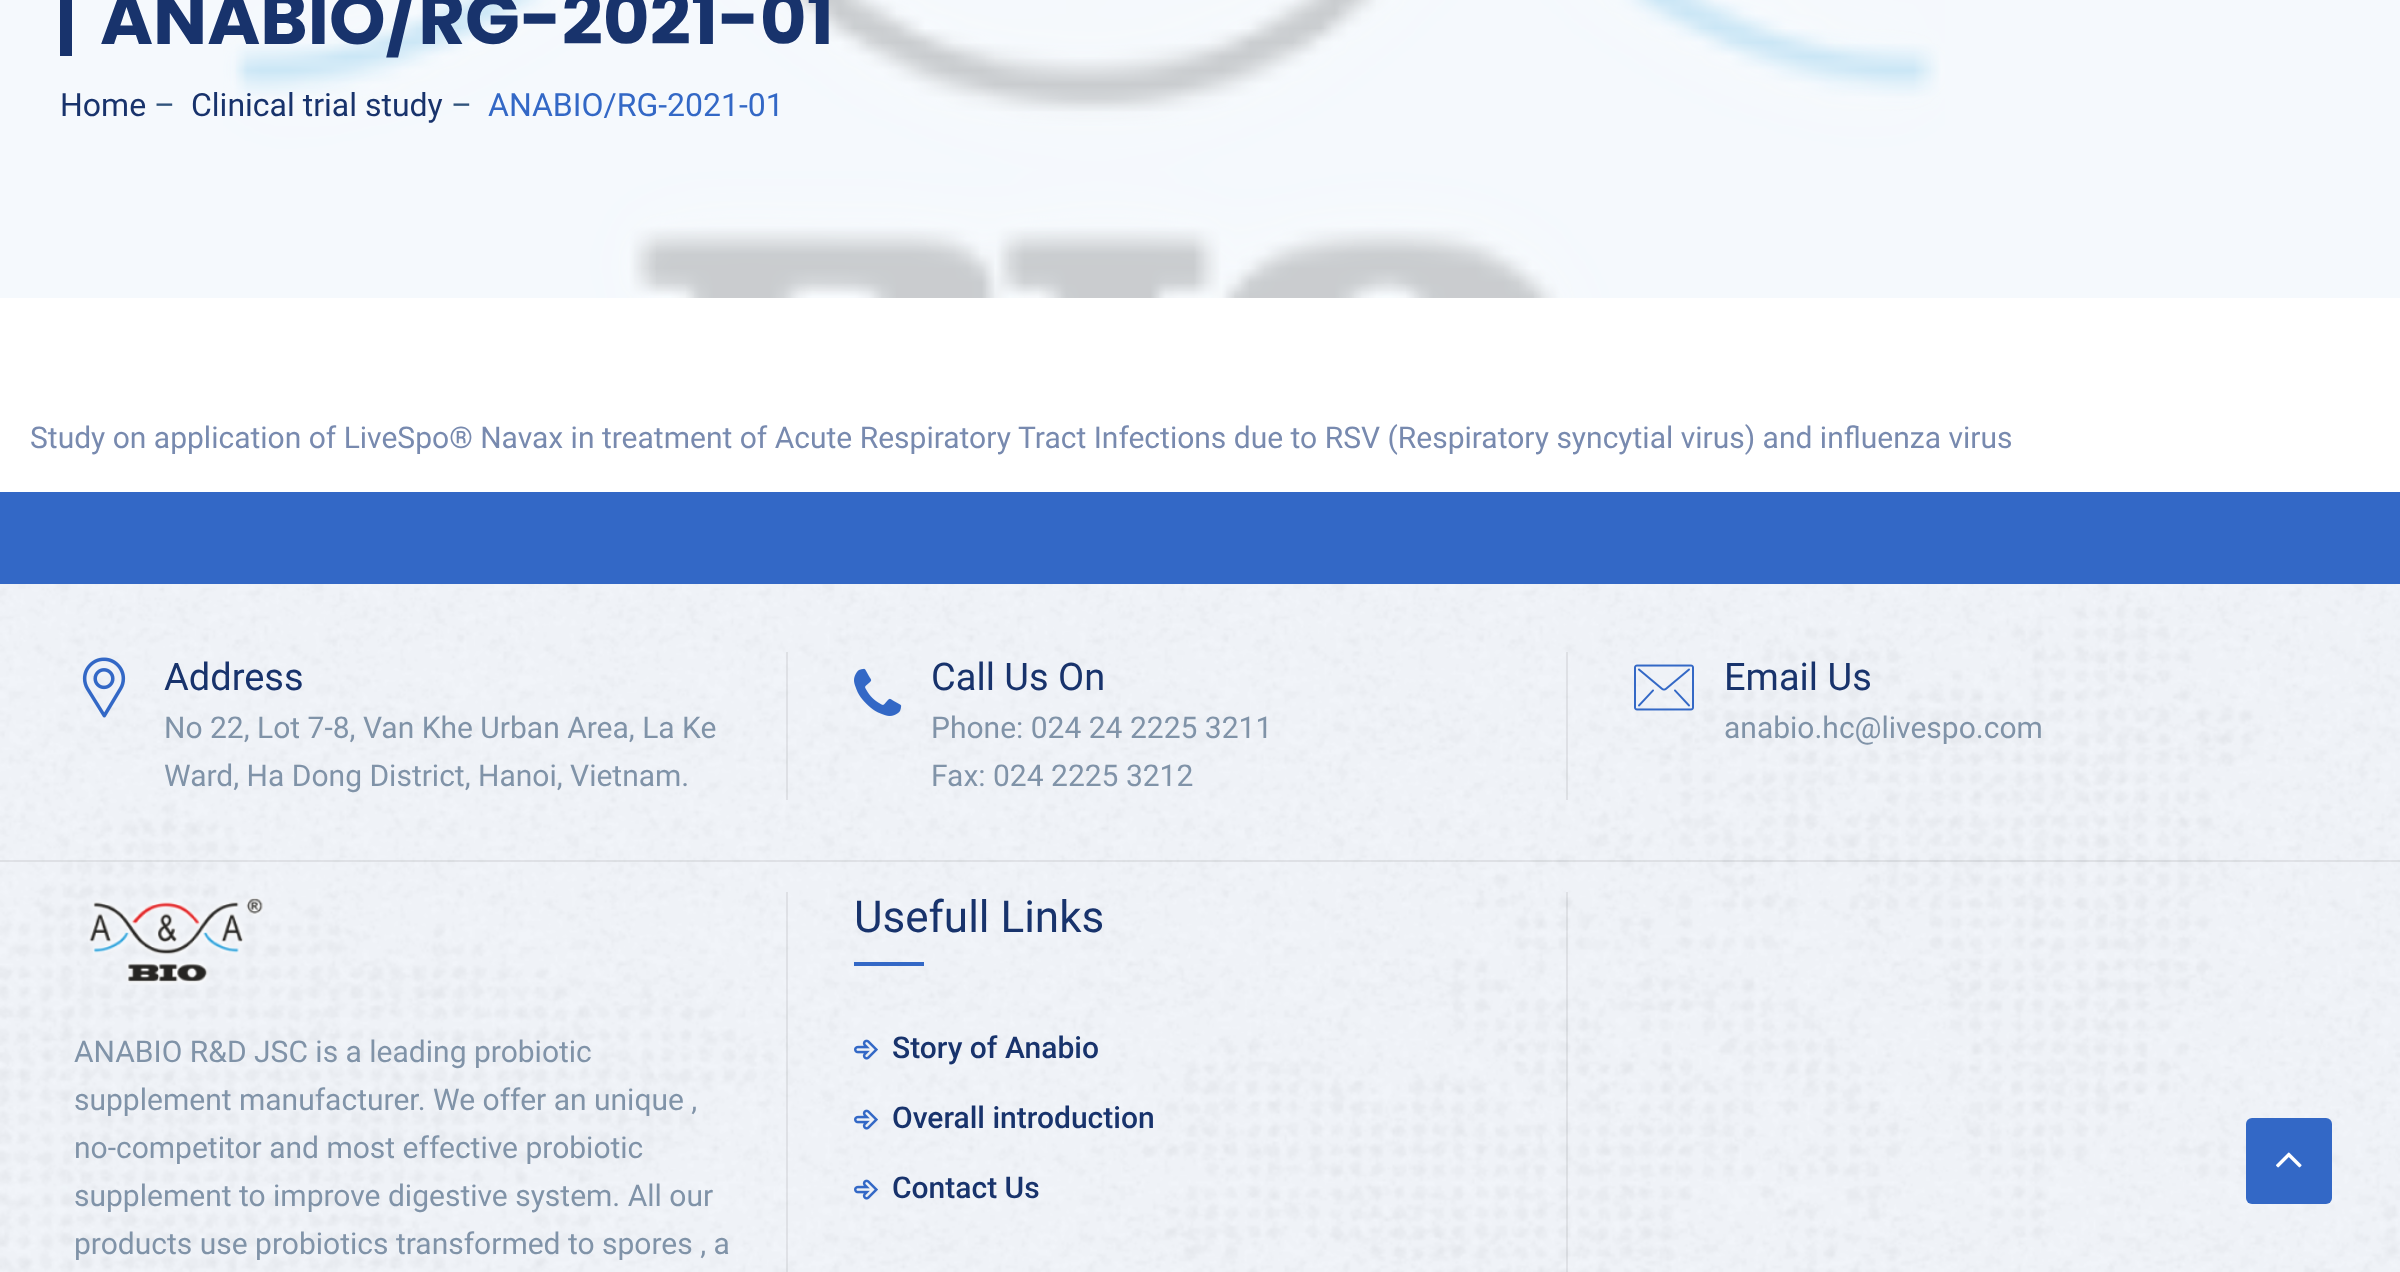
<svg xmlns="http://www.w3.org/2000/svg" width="2400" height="1272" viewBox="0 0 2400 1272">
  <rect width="100%" height="100%" fill="#ffffff"/>
  <rect x="0" y="0" width="2400" height="298" fill="#f5f9fd"/>
  <image x="223" y="0" width="1722" height="298" href="img1.png"/>
  <rect x="60" y="0" width="12" height="56" fill="#18336c"/>
  <text x="100" y="44" font-family="Poppins" font-size="72" font-weight="bold" fill="#18336c">ANABIO/RG-2021-01</text>
  <text x="60" y="116" font-family="Roboto" font-size="32" fill="#18336c">Home</text>
  <text x="154" y="116" font-family="Roboto" font-size="32" fill="#31547c">–</text>
  <text x="191" y="116" font-family="Roboto" font-size="32" fill="#18336c">Clinical trial study</text>
  <text x="451" y="116" font-family="Roboto" font-size="32" fill="#31547c">–</text>
  <text x="488" y="116" font-family="Roboto" font-size="32" fill="#3368c6">ANABIO/RG-2021-01</text>
  <text x="30" y="448" font-family="Roboto" font-size="30" fill="#788aaf">Study on application of LiveSpo® Navax in treatment of Acute Respiratory</text>
  <text x="1018" y="448" font-family="Roboto" font-size="30" fill="#788aaf">Tract Infections due to RSV (Respiratory syncytial virus) and influenza virus</text>
  <image x="0" y="584" width="2400" height="688" href="img2.png"/>
  <rect x="0" y="492" width="2400" height="92" fill="#3368c6"/>
  <rect x="0" y="860" width="2400" height="2" fill="#000000" fill-opacity="0.07"/>
  <image x="82" y="657" width="44" height="61" href="img3.png"/>
  <text x="164" y="690" font-family="Roboto" font-size="38" fill="#18336c">Address</text>
  <text x="164" y="738" font-family="Roboto" font-size="30" fill="#8093a8">No 22, Lot 7-8, Van Khe Urban Area, La Ke</text>
  <text x="164" y="786" font-family="Roboto" font-size="30" fill="#8093a8">Ward, Ha Dong District, Hanoi, Vietnam.</text>
  <rect x="786" y="652" width="2" height="148" fill="#000000" fill-opacity="0.07"/>
  <image x="854" y="668" width="48" height="48" href="img4.png"/>
  <text x="931" y="690" font-family="Roboto" font-size="38" fill="#18336c">Call Us On</text>
  <text x="931" y="738" font-family="Roboto" font-size="30" fill="#8093a8">Phone: 024 24 2225 3211</text>
  <text x="931" y="786" font-family="Roboto" font-size="30" fill="#8093a8">Fax: 024 2225 3212</text>
  <rect x="1566" y="652" width="2" height="148" fill="#000000" fill-opacity="0.07"/>
  <image x="1634" y="664" width="60" height="47" href="img5.png"/>
  <text x="1724" y="690" font-family="Roboto" font-size="38" fill="#18336c">Email Us</text>
  <text x="1724" y="738" font-family="Roboto" font-size="30" fill="#8093a8">anabio.hc@livespo.com</text>
  <image x="88" y="898" width="175" height="87" href="img6.png"/>
  <text x="74" y="1062" font-family="Roboto" font-size="30" fill="#8093a8">ANABIO R&amp;D JSC is a leading probiotic</text>
  <text x="74" y="1110" font-family="Roboto" font-size="30" fill="#8093a8">supplement manufacturer. We offer an unique ,</text>
  <text x="74" y="1158" font-family="Roboto" font-size="30" fill="#8093a8">no-competitor and most effective probiotic</text>
  <text x="74" y="1206" font-family="Roboto" font-size="30" fill="#8093a8">supplement to improve digestive system. All our</text>
  <text x="74" y="1254" font-family="Roboto" font-size="30" fill="#8093a8">products use probiotics transformed to spores , a</text>
  <rect x="786" y="892" width="2" height="380" fill="#000000" fill-opacity="0.07"/>
  <text x="854" y="932" font-family="Roboto" font-size="44" fill="#18336c">Usefull Links</text>
  <rect x="854" y="962" width="70" height="4" fill="#3368c6"/>
  <image x="854" y="1039" width="24" height="21" href="img7.png"/>
  <text x="892" y="1058" font-family="Roboto" font-size="30" font-weight="500" fill="#18336c">Story of Anabio</text>
  <image x="854" y="1109" width="24" height="21" href="img8.png"/>
  <text x="892" y="1128" font-family="Roboto" font-size="30" font-weight="500" fill="#18336c">Overall introduction</text>
  <image x="854" y="1179" width="24" height="21" href="img9.png"/>
  <text x="892" y="1198" font-family="Roboto" font-size="30" font-weight="500" fill="#18336c">Contact Us</text>
  <rect x="1566" y="892" width="2" height="380" fill="#000000" fill-opacity="0.07"/>
  <rect x="2246" y="1118" width="86" height="86" rx="6" fill="#3368c6"/>
  <image x="2276" y="1152" width="26" height="16" href="img10.png"/>
</svg>
